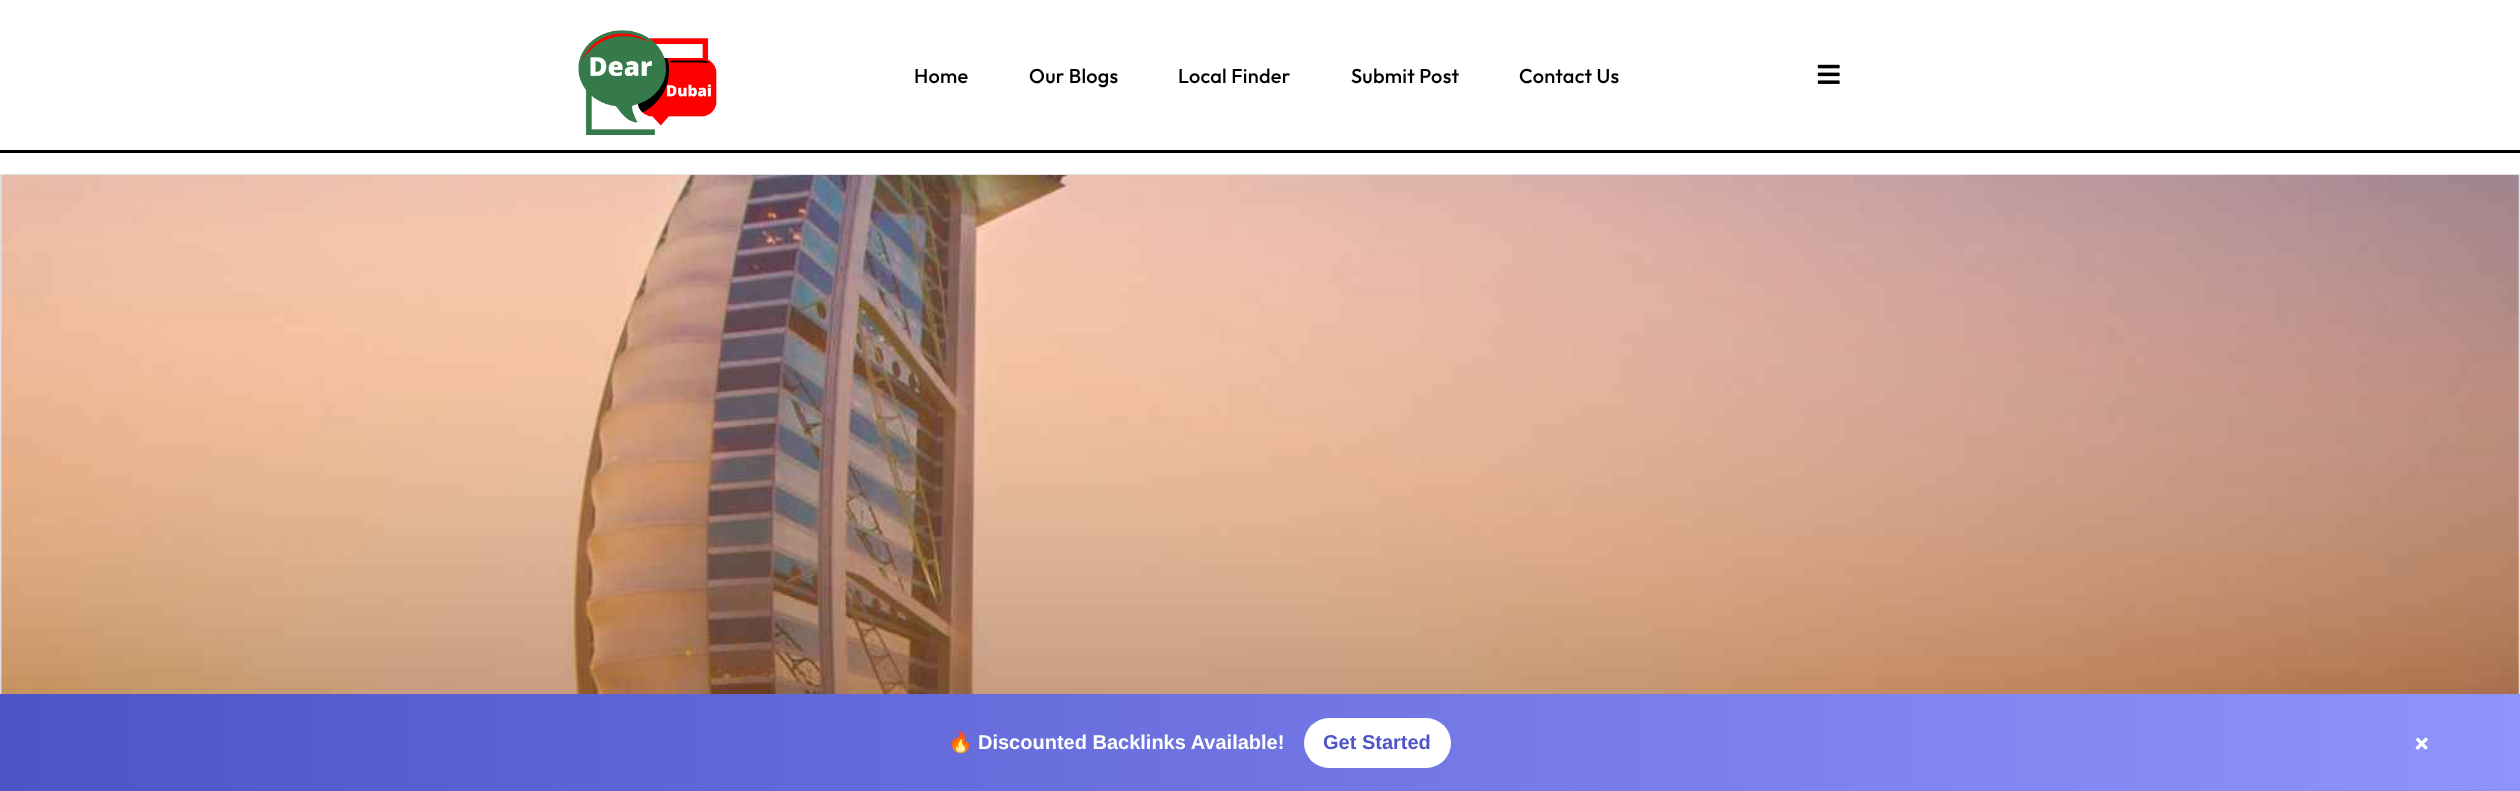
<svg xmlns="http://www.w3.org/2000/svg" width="2520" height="791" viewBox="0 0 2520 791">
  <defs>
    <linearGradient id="g1" gradientUnits="userSpaceOnUse" x1="0" y1="743" x2="2520" y2="742"><stop offset="0" stop-color="#4e54c8"/><stop offset="1" stop-color="#8f94fb"/></linearGradient>
  </defs>
  <rect width="100%" height="100%" fill="#ffffff"/>
  <rect x="0" y="150" width="2520" height="3" fill="#000000"/>
  <image x="578" y="30" width="139" height="105" href="img1.png"/>
  <text x="914" y="83" font-family="Outfit" font-size="20" font-weight="500" letter-spacing="0.25" fill="#000000">Home</text>
  <text x="1029" y="83" font-family="Outfit" font-size="20" font-weight="500" letter-spacing="0.25" fill="#000000">Our Blogs</text>
  <text x="1178" y="83" font-family="Outfit" font-size="20" font-weight="500" letter-spacing="0.25" fill="#000000">Local Finder</text>
  <text x="1351" y="83" font-family="Outfit" font-size="20" font-weight="500" letter-spacing="0.25" fill="#000000">Submit Post</text>
  <text x="1519" y="83" font-family="Outfit" font-size="20" font-weight="500" letter-spacing="0.25" fill="#000000">Contact Us</text>
  <image x="1817" y="64" width="23" height="20" href="img2.png"/>
  <rect x="0.5" y="174.5" width="2519" height="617" fill="none" stroke="#dee2e6"/>
  <image x="1" y="175" width="2518" height="519" href="img3.png"/>
  <rect x="0" y="694" width="2520" height="97" fill="url(#g1)"/>
  <text x="948" y="749" font-family="Noto Color Emoji" font-size="20" font-weight="bold" fill="#ffffff">🔥</text>
  <text x="978" y="749" font-family="Liberation Sans" font-size="20" font-weight="bold" fill="#ffffff">Discounted Backlinks Available!</text>
  <rect x="1304" y="718" width="147" height="50" rx="25" fill="#ffffff"/>
  <text x="1323" y="749" font-family="Liberation Sans" font-size="20" font-weight="bold" fill="#4e54c8">Get Started</text>
  <text x="2414" y="753" font-family="Outfit" font-size="28" font-weight="600" fill="#ffffff">×</text>
</svg>
